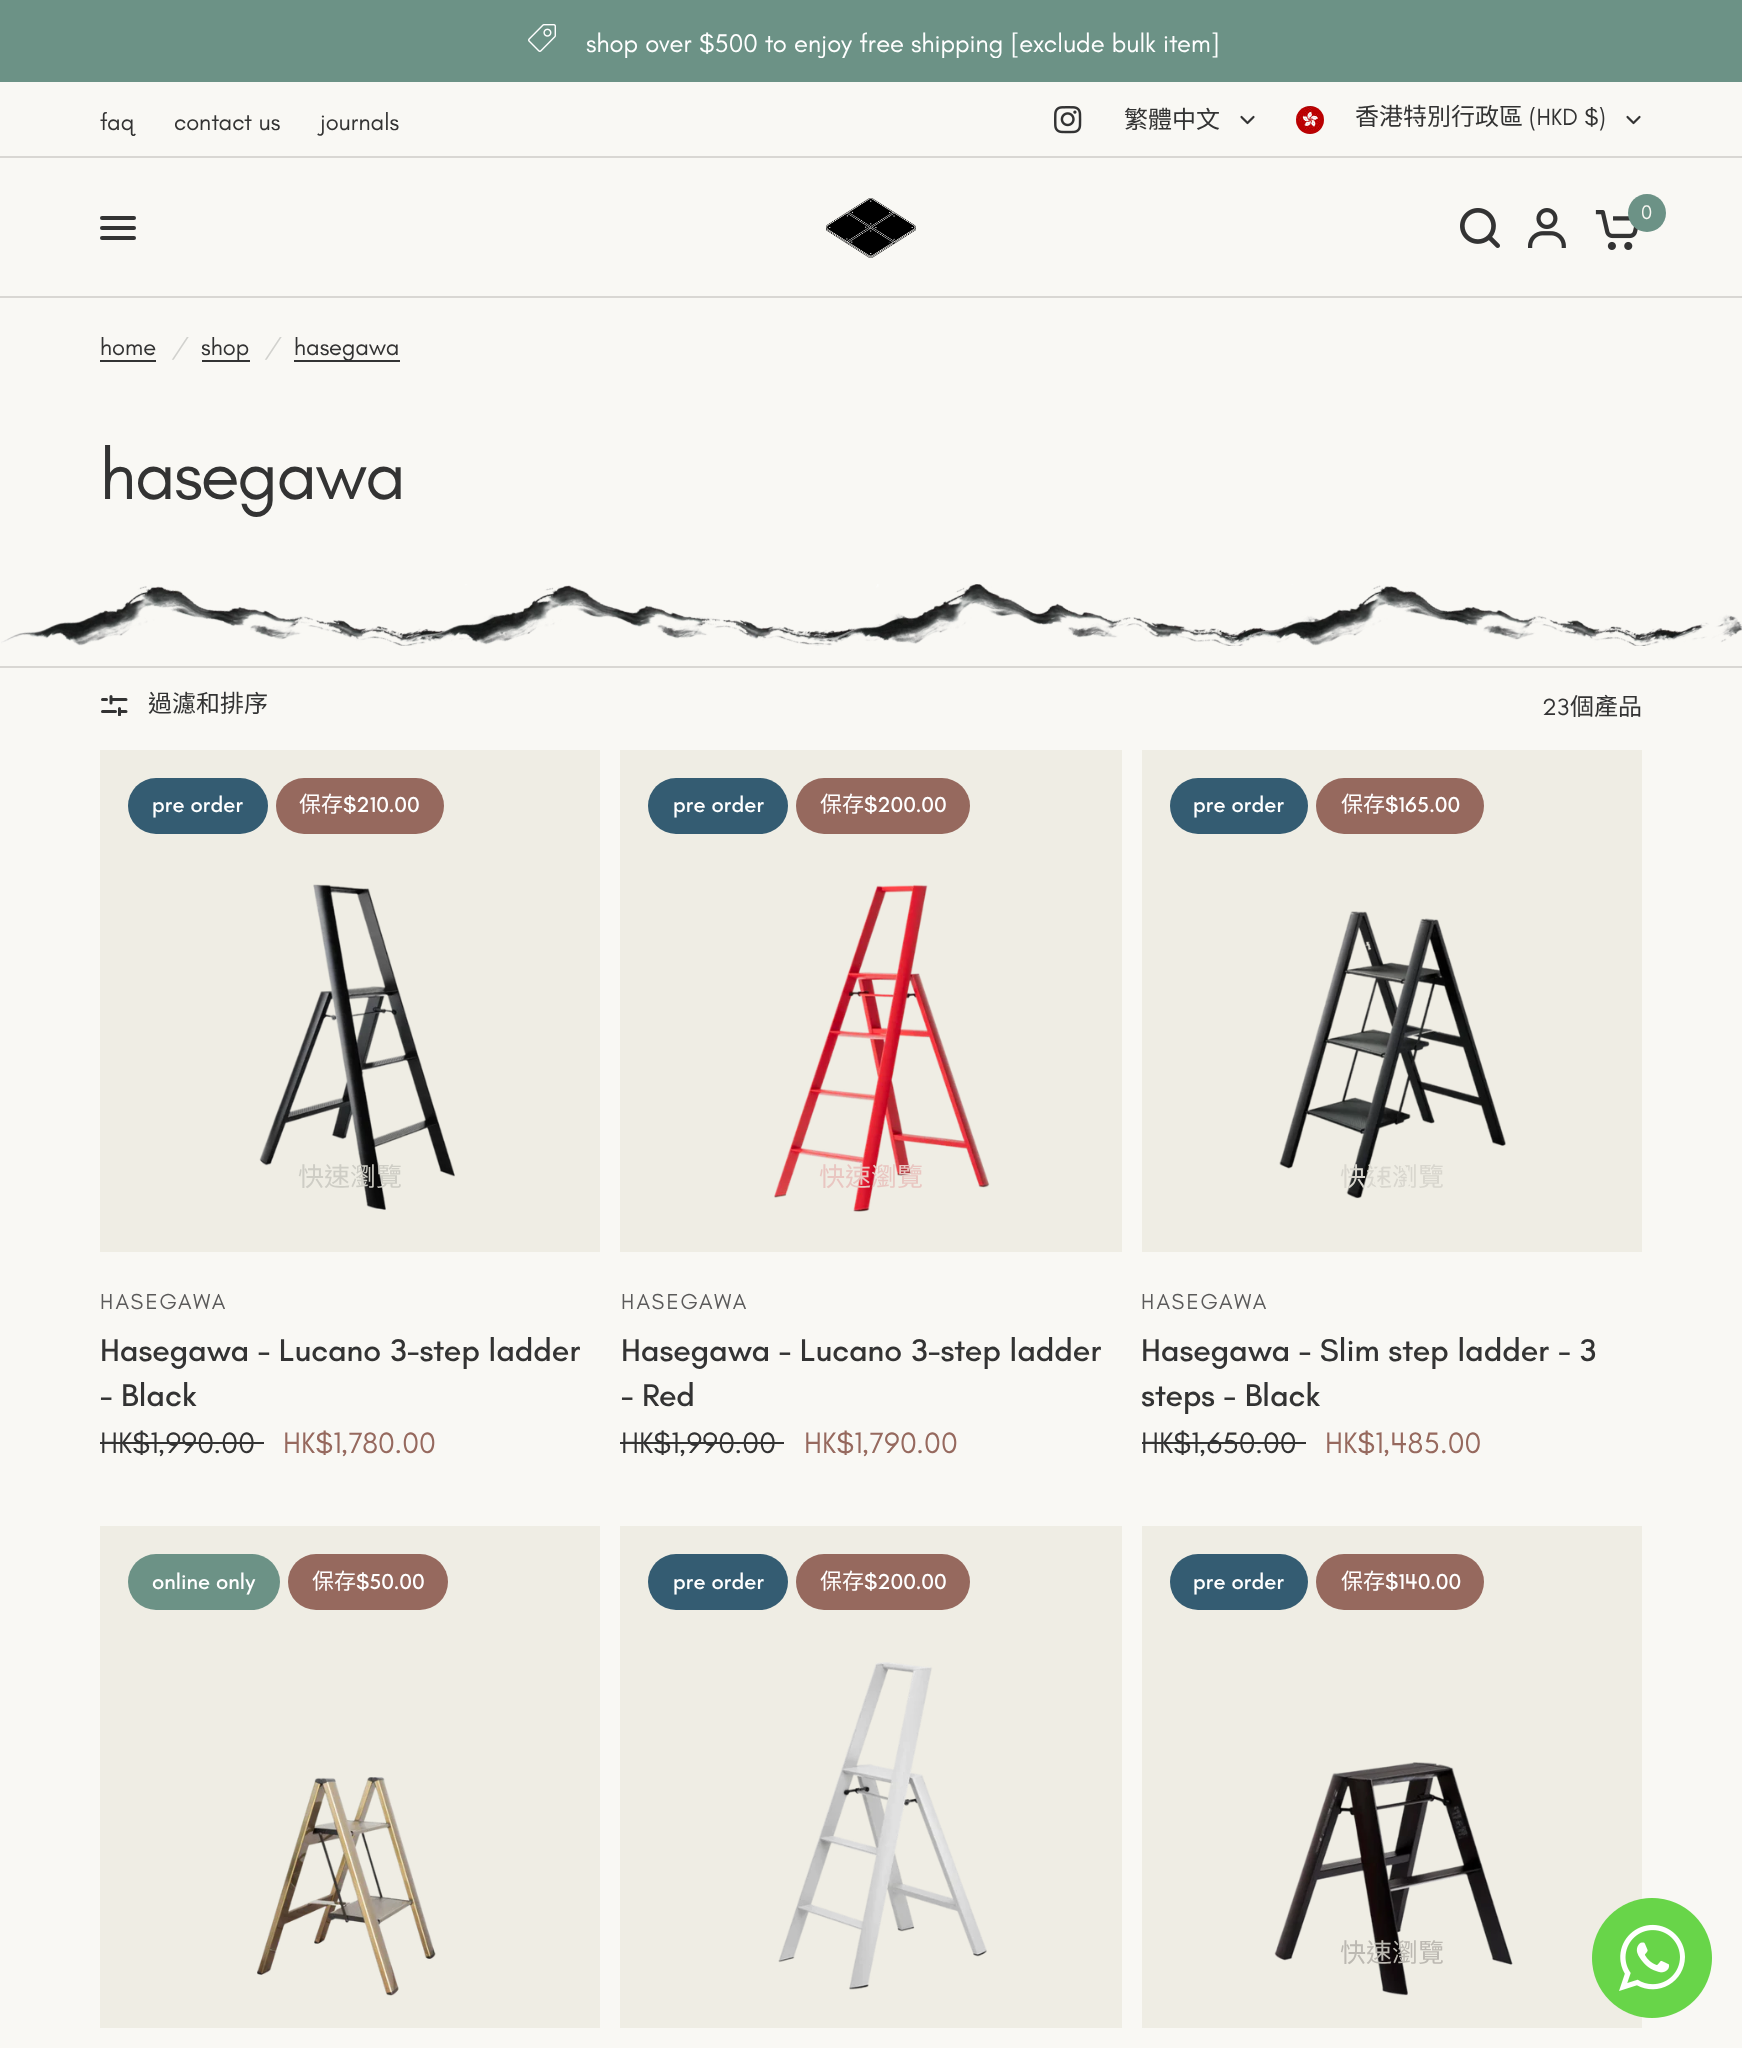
<svg xmlns="http://www.w3.org/2000/svg" width="1742" height="2048" viewBox="0 0 1742 2048">
  <defs>
    <clipPath id="clip1"><rect x="372" y="24" width="1000" height="34"/></clipPath>
    <clipPath id="clip2"><rect x="100" y="694" width="28" height="22"/></clipPath>
    <clipPath id="clip3"><rect x="1374" y="1160" width="36" height="36"/></clipPath>
  </defs>
  <rect width="100%" height="100%" fill="#f9f8f4"/>
  <rect x="0" y="0" width="1742" height="82" fill="#6c9286"/>
  <image x="528" y="24" width="28" height="28" href="img1.png"/>
  <g clip-path="url(#clip1)">
    <text x="586" y="52" font-family="Teachers" font-size="26" fill="#ffffff">shop over $500 to enjoy free shipping [exclude bulk item]</text>
  </g>
  <rect x="0" y="156" width="1742" height="2" fill="#d9d7d3"/>
  <text x="100" y="130" font-family="Teachers" font-size="24" fill="#333333">faq</text>
  <text x="174" y="130" font-family="Teachers" font-size="24" fill="#333333">contact us</text>
  <text x="320" y="130" font-family="Teachers" font-size="24" fill="#333333">journals</text>
  <image x="1054" y="106" width="28" height="28" href="img2.png"/>
  <text x="1124" y="128" font-family="Noto Sans CJK TC" font-size="24" fill="#333333">繁體中文</text>
  <path d="M1253.5 117L1247.5 123L1241.5 117" fill="none" stroke="#333333" stroke-width="2.2" stroke-linecap="round" stroke-linejoin="round"/>
  <image x="1296" y="106" width="28" height="28" href="img3.png"/>
  <text x="1355" y="125" font-family="Noto Sans CJK TC" font-size="24" fill="#333333">香港特別行政區</text>
  <text x="1529" y="125" font-family="Teachers" font-size="24" fill="#333333">(HKD $)</text>
  <path d="M1639.5 117L1633.5 123L1627.5 117" fill="none" stroke="#333333" stroke-width="2.2" stroke-linecap="round" stroke-linejoin="round"/>
  <image x="826" y="198" width="90" height="60" href="img4.png"/>
  <image x="1460" y="208" width="40" height="40" href="img5.png"/>
  <image x="1528" y="208" width="38" height="40" href="img6.png"/>
  <image x="1595" y="210" width="43" height="40" href="img7.png"/>
  <circle cx="1647" cy="213" r="19" fill="#6c9286"/>
  <text x="1641" y="219" font-family="Teachers" font-size="20" fill="#f9f8f3">0</text>
  <rect x="100" y="216" width="36" height="4" rx="2" fill="#333333"/>
  <rect x="100" y="226" width="36" height="4" rx="2" fill="#333333"/>
  <rect x="100" y="236" width="36" height="4" rx="2" fill="#333333"/>
  <rect x="0" y="296" width="1742" height="2" fill="#d9d7d3"/>
  <text x="100" y="355" font-family="Teachers" font-size="24" fill="#333333">home</text>
  <rect x="100" y="360" width="56" height="2" fill="#333333"/>
  <text x="172" y="355" font-family="Teachers" font-size="24" font-style="italic" fill="#d1d1cd">/</text>
  <rect x="202" y="360" width="48" height="2" fill="#333333"/>
  <text x="201" y="355" font-family="Teachers" font-size="24" fill="#333333">shop</text>
  <text x="265" y="355" font-family="Teachers" font-size="24" font-style="italic" fill="#d1d1cd">/</text>
  <rect x="294" y="360" width="106" height="2" fill="#333333"/>
  <text x="294" y="355" font-family="Teachers" font-size="24" fill="#333333">hasegawa</text>
  <text x="100" y="499" font-family="Teachers" font-size="72" letter-spacing="-1.5" fill="#333333">hasegawa</text>
  <image x="1" y="584" width="1741" height="62" href="img8.png"/>
  <rect x="0" y="666" width="1742" height="2" fill="#d9d7d3"/>
  <g clip-path="url(#clip2)">
    <path d="M115.5 711.5H102.5M126 711.5H119.5M106.5 699.5H102.5M126 699.5H111M111 696.5V703M119.5 715V708.5" fill="none" stroke="#333333" stroke-width="3" stroke-linecap="round" stroke-linejoin="round"/>
  </g>
  <text x="148" y="712" font-family="Noto Sans CJK TC" font-size="24" fill="#333333">過濾和排序</text>
  <text x="1542" y="715" font-family="Teachers" font-size="24" fill="#333333">23</text>
  <text x="1570" y="715" font-family="Noto Sans CJK TC" font-size="24" fill="#333333">個產品</text>
  <rect x="100" y="750" width="500" height="502" fill="#efede4"/>
  <rect x="128" y="778" width="140" height="56" rx="28" fill="#345c72"/>
  <text x="152" y="812" font-family="Teachers" font-size="22" font-weight="500" fill="#ffffff">pre order</text>
  <rect x="276" y="778" width="168" height="56" rx="28" fill="#96695e"/>
  <text x="299" y="812" font-family="Noto Sans CJK TC" font-size="22" fill="#ffffff">保存</text>
  <text x="343" y="812" font-family="Teachers" font-size="22" font-weight="500" fill="#ffffff">$210.00</text>
  <image x="259" y="884" width="196" height="326" href="img9.png"/>
  <text x="298" y="1186" font-family="Noto Sans CJK TC" font-size="26" fill="#cecdc5">快速瀏覽</text>
  <text x="100" y="1309" font-family="Teachers" font-size="22" letter-spacing="2.25" fill="#5b5a5a">HASEGAWA</text>
  <text x="100" y="1361" font-family="Teachers" font-size="32" font-weight="500" fill="#333333">Hasegawa - Lucano 3-step ladder</text>
  <text x="100" y="1406" font-family="Teachers" font-size="32" font-weight="500" fill="#333333">- Black</text>
  <text x="100" y="1453" font-family="Teachers" font-size="30" fill="#333333">HK$1,990.00</text>
  <rect x="100" y="1442" width="164" height="2" fill="#333333"/>
  <text x="283" y="1453" font-family="Teachers" font-size="30" fill="#96695e">HK$1,780.00</text>
  <rect x="620" y="750" width="502" height="502" fill="#efede4"/>
  <rect x="648" y="778" width="140" height="56" rx="28" fill="#345c72"/>
  <text x="673" y="812" font-family="Teachers" font-size="22" font-weight="500" fill="#ffffff">pre order</text>
  <rect x="796" y="778" width="174" height="56" rx="28" fill="#96695e"/>
  <text x="820" y="812" font-family="Noto Sans CJK TC" font-size="22" fill="#ffffff">保存</text>
  <text x="864" y="812" font-family="Teachers" font-size="22" font-weight="500" fill="#ffffff">$200.00</text>
  <image x="774" y="884" width="216" height="328" href="img10.png"/>
  <text x="819" y="1186" font-family="Noto Sans CJK TC" font-size="26" fill="#e9c6c1">快速瀏覽</text>
  <text x="621" y="1309" font-family="Teachers" font-size="22" letter-spacing="2.25" fill="#5b5a5a">HASEGAWA</text>
  <text x="621" y="1361" font-family="Teachers" font-size="32" font-weight="500" fill="#333333">Hasegawa - Lucano 3-step ladder</text>
  <text x="621" y="1406" font-family="Teachers" font-size="32" font-weight="500" fill="#333333">- Red</text>
  <text x="621" y="1453" font-family="Teachers" font-size="30" fill="#333333">HK$1,990.00</text>
  <rect x="620" y="1442" width="164" height="2" fill="#333333"/>
  <text x="804" y="1453" font-family="Teachers" font-size="30" fill="#96695e">HK$1,790.00</text>
  <rect x="1142" y="750" width="500" height="502" fill="#efede4"/>
  <rect x="1170" y="778" width="138" height="56" rx="28" fill="#345c72"/>
  <text x="1193" y="812" font-family="Teachers" font-size="22" font-weight="500" fill="#ffffff">pre order</text>
  <rect x="1316" y="778" width="168" height="56" rx="28" fill="#96695e"/>
  <text x="1341" y="812" font-family="Noto Sans CJK TC" font-size="22" fill="#ffffff">保存</text>
  <text x="1385" y="812" font-family="Teachers" font-size="22" font-weight="500" fill="#ffffff">$165.00</text>
  <image x="1279" y="911" width="227" height="288" href="img11.png"/>
  <text x="1340" y="1186" font-family="Noto Sans CJK TC" font-size="26" fill="#d8d6ce">快速瀏覽</text>
  <g clip-path="url(#clip3)">
    <path d="M1392 1161.5C1401 1161.5 1408.5 1169 1408.5 1178C1408.5 1187 1401 1194.5 1392 1194.5C1383 1194.5 1375.5 1187 1375.5 1178C1375.5 1169 1383 1161.5 1392 1161.5" fill="none" stroke="#efede4" stroke-width="3.3"/>
  </g>
  <text x="1141" y="1309" font-family="Teachers" font-size="22" letter-spacing="2.25" fill="#5b5a5a">HASEGAWA</text>
  <text x="1141" y="1361" font-family="Teachers" font-size="32" font-weight="500" fill="#333333">Hasegawa - Slim step ladder - 3</text>
  <text x="1141" y="1406" font-family="Teachers" font-size="32" font-weight="500" fill="#333333">steps - Black</text>
  <text x="1141" y="1453" font-family="Teachers" font-size="30" fill="#333333">HK$1,650.00</text>
  <rect x="1142" y="1442" width="164" height="2" fill="#333333"/>
  <text x="1325" y="1453" font-family="Teachers" font-size="30" fill="#96695e">HK$1,485.00</text>
  <rect x="100" y="1526" width="500" height="502" fill="#efede4"/>
  <image x="257" y="1777" width="179" height="219" href="img12.png"/>
  <rect x="128" y="1554" width="152" height="56" rx="28" fill="#6c9286"/>
  <text x="152" y="1589" font-family="Teachers" font-size="22" font-weight="500" fill="#ffffff">online only</text>
  <rect x="288" y="1554" width="160" height="56" rx="28" fill="#96695e"/>
  <text x="312" y="1589" font-family="Noto Sans CJK TC" font-size="22" fill="#ffffff">保存</text>
  <text x="356" y="1589" font-family="Teachers" font-size="22" font-weight="500" fill="#ffffff">$50.00</text>
  <rect x="620" y="1526" width="502" height="502" fill="#efede4"/>
  <image x="778" y="1662" width="209" height="328" href="img13.png"/>
  <rect x="648" y="1554" width="140" height="56" rx="28" fill="#345c72"/>
  <text x="673" y="1589" font-family="Teachers" font-size="22" font-weight="500" fill="#ffffff">pre order</text>
  <rect x="796" y="1554" width="174" height="56" rx="28" fill="#96695e"/>
  <text x="820" y="1589" font-family="Noto Sans CJK TC" font-size="22" fill="#ffffff">保存</text>
  <text x="864" y="1589" font-family="Teachers" font-size="22" font-weight="500" fill="#ffffff">$200.00</text>
  <rect x="1142" y="1526" width="500" height="502" fill="#efede4"/>
  <rect x="1170" y="1554" width="138" height="56" rx="28" fill="#345c72"/>
  <text x="1193" y="1589" font-family="Teachers" font-size="22" font-weight="500" fill="#ffffff">pre order</text>
  <rect x="1316" y="1554" width="168" height="56" rx="28" fill="#96695e"/>
  <text x="1341" y="1589" font-family="Noto Sans CJK TC" font-size="22" fill="#ffffff">保存</text>
  <text x="1385" y="1589" font-family="Teachers" font-size="22" font-weight="500" fill="#ffffff">$140.00</text>
  <image x="1274" y="1762" width="239" height="234" href="img14.png"/>
  <text x="1340" y="1962" font-family="Noto Sans CJK TC" font-size="26" fill="#bcb9b2">快速瀏覽</text>
  <image x="1592" y="1898" width="120" height="120" href="img15.png"/>
</svg>
